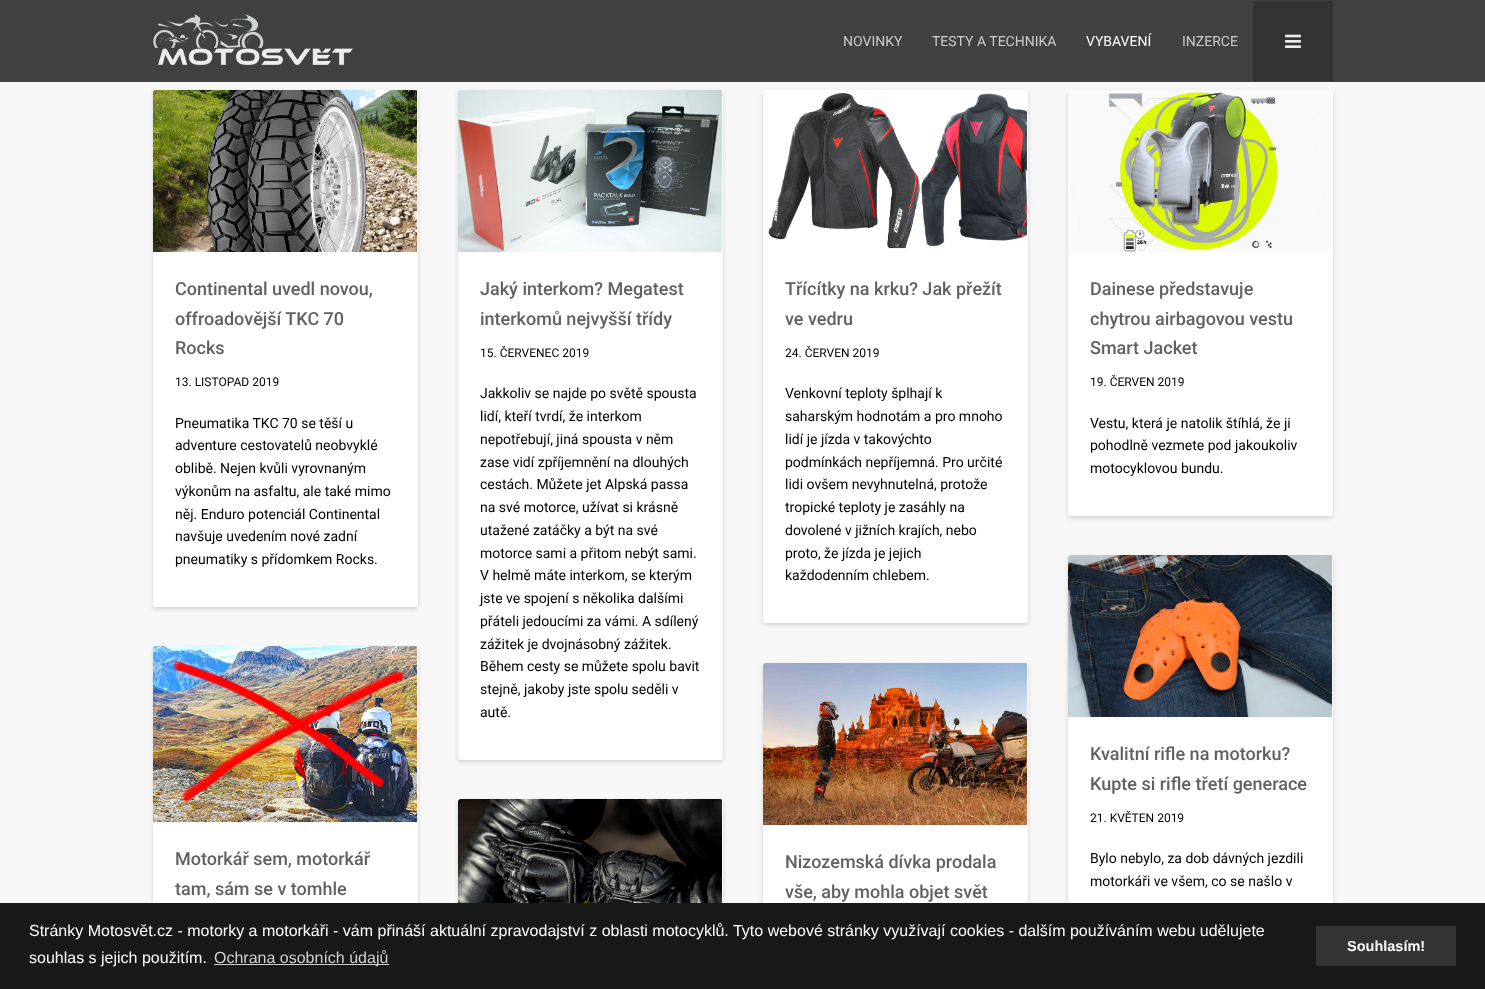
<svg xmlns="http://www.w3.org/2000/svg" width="1485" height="989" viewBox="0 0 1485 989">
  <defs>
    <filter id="blur1" x="-50%" y="-200%" width="200%" height="500%"><feGaussianBlur stdDeviation="2"/></filter>
  </defs>
  <rect width="100%" height="100%" fill="#f7f7f7"/>
  <rect x="0" y="0" width="1485" height="82" fill="#414141"/>
  <image x="153" y="14" width="200" height="51" href="img1.png"/>
  <text x="843" y="46" font-family="Roboto" font-size="14" fill="#cbcbcb">NOVINKY</text>
  <text x="932" y="46" font-family="Roboto" font-size="14" fill="#cbcbcb">TESTY A TECHNIKA</text>
  <text x="1086" y="46" font-family="Roboto" font-size="14" fill="#fefefe">VYBAVENÍ</text>
  <text x="1182" y="46" font-family="Roboto" font-size="14" fill="#cbcbcb">INZERCE</text>
  <rect x="1253" y="1" width="80" height="80" fill="#333333"/>
  <image x="1285" y="34" width="16" height="14" href="img2.png"/>
  <rect x="153" y="92" width="265" height="517" rx="3" fill="#000000" fill-opacity="0.15" filter="url(#blur1)"/>
  <rect x="153" y="90" width="265" height="517" rx="3" fill="#ffffff"/>
  <image x="153" y="90" width="264" height="162" href="img3.png"/>
  <text x="175" y="295" font-family="Roboto" font-size="18" font-weight="500" fill="#616161">Continental uvedl novou,</text>
  <text x="175" y="325" font-family="Roboto" font-size="18" font-weight="500" fill="#616161">offroadovější TKC 70</text>
  <text x="175" y="354" font-family="Roboto" font-size="18" font-weight="500" fill="#616161">Rocks</text>
  <text x="175" y="386" font-family="Roboto" font-size="12" fill="#000000">13. LISTOPAD 2019</text>
  <text x="175" y="428" font-family="Roboto" font-size="14" fill="#000000">Pneumatika TKC 70 se těší u</text>
  <text x="175" y="450" font-family="Roboto" font-size="14" fill="#000000">adventure cestovatelů neobvyklé</text>
  <text x="175" y="473" font-family="Roboto" font-size="14" fill="#000000">oblibě. Nejen kvůli vyrovnaným</text>
  <text x="175" y="496" font-family="Roboto" font-size="14" fill="#000000">výkonům na asfaltu, ale také mimo</text>
  <text x="175" y="519" font-family="Roboto" font-size="14" fill="#000000">něj. Enduro potenciál Continental</text>
  <text x="175" y="541" font-family="Roboto" font-size="14" fill="#000000">navšuje uvedením nové zadní</text>
  <text x="175" y="564" font-family="Roboto" font-size="14" fill="#000000">pneumatiky s přídomkem Rocks.</text>
  <rect x="458" y="92" width="265" height="670" rx="3" fill="#000000" fill-opacity="0.15" filter="url(#blur1)"/>
  <rect x="458" y="90" width="265" height="670" rx="3" fill="#ffffff"/>
  <image x="458" y="90" width="264" height="162" href="img4.png"/>
  <text x="480" y="295" font-family="Roboto" font-size="18" font-weight="500" fill="#616161">Jaký interkom? Megatest</text>
  <text x="480" y="325" font-family="Roboto" font-size="18" font-weight="500" fill="#616161">interkomů nejvyšší třídy</text>
  <text x="480" y="357" font-family="Roboto" font-size="12" fill="#000000">15. ČERVENEC 2019</text>
  <text x="480" y="398" font-family="Roboto" font-size="14" fill="#000000">Jakkoliv se najde po světě spousta</text>
  <text x="480" y="421" font-family="Roboto" font-size="14" fill="#000000">lidí, kteří tvrdí, že interkom</text>
  <text x="480" y="444" font-family="Roboto" font-size="14" fill="#000000">nepotřebují, jiná spousta v něm</text>
  <text x="480" y="467" font-family="Roboto" font-size="14" fill="#000000">zase vidí zpříjemnění na dlouhých</text>
  <text x="480" y="489" font-family="Roboto" font-size="14" fill="#000000">cestách. Můžete jet Alpská passa</text>
  <text x="480" y="512" font-family="Roboto" font-size="14" fill="#000000">na své motorce, užívat si krásně</text>
  <text x="480" y="535" font-family="Roboto" font-size="14" fill="#000000">utažené zatáčky a být na své</text>
  <text x="480" y="558" font-family="Roboto" font-size="14" fill="#000000">motorce sami a přitom nebýt sami.</text>
  <text x="480" y="580" font-family="Roboto" font-size="14" fill="#000000">V helmě máte interkom, se kterým</text>
  <text x="480" y="603" font-family="Roboto" font-size="14" fill="#000000">jste ve spojení s několika dalšími</text>
  <text x="480" y="626" font-family="Roboto" font-size="14" fill="#000000">přáteli jedoucími za vámi. A sdílený</text>
  <text x="480" y="649" font-family="Roboto" font-size="14" fill="#000000">zážitek je dvojnásobný zážitek.</text>
  <text x="480" y="671" font-family="Roboto" font-size="14" fill="#000000">Během cesty se můžete spolu bavit</text>
  <text x="480" y="694" font-family="Roboto" font-size="14" fill="#000000">stejně, jakoby jste spolu seděli v</text>
  <text x="480" y="717" font-family="Roboto" font-size="14" fill="#000000">autě.</text>
  <rect x="763" y="92" width="265" height="533" rx="3" fill="#000000" fill-opacity="0.15" filter="url(#blur1)"/>
  <rect x="763" y="90" width="265" height="533" rx="3" fill="#ffffff"/>
  <image x="768" y="93" width="259" height="156" href="img5.png"/>
  <text x="785" y="295" font-family="Roboto" font-size="18" font-weight="500" fill="#616161">Třícítky na krku? Jak přežít</text>
  <text x="785" y="325" font-family="Roboto" font-size="18" font-weight="500" fill="#616161">ve vedru</text>
  <text x="785" y="357" font-family="Roboto" font-size="12" fill="#000000">24. ČERVEN 2019</text>
  <text x="785" y="398" font-family="Roboto" font-size="14" fill="#000000">Venkovní teploty šplhají k</text>
  <text x="785" y="421" font-family="Roboto" font-size="14" fill="#000000">saharským hodnotám a pro mnoho</text>
  <text x="785" y="444" font-family="Roboto" font-size="14" fill="#000000">lidí je jízda v takovýchto</text>
  <text x="785" y="467" font-family="Roboto" font-size="14" fill="#000000">podmínkách nepříjemná. Pro určité</text>
  <text x="785" y="489" font-family="Roboto" font-size="14" fill="#000000">lidi ovšem nevyhnutelná, protože</text>
  <text x="785" y="512" font-family="Roboto" font-size="14" fill="#000000">tropické teploty je zasáhly na</text>
  <text x="785" y="535" font-family="Roboto" font-size="14" fill="#000000">dovolené v jižních krajích, nebo</text>
  <text x="785" y="558" font-family="Roboto" font-size="14" fill="#000000">proto, že jízda je jejich</text>
  <text x="785" y="580" font-family="Roboto" font-size="14" fill="#000000">každodenním chlebem.</text>
  <rect x="1068" y="92" width="265" height="426" rx="3" fill="#000000" fill-opacity="0.15" filter="url(#blur1)"/>
  <rect x="1068" y="90" width="265" height="426" rx="3" fill="#ffffff"/>
  <image x="1068" y="90" width="264" height="162" href="img6.png"/>
  <text x="1090" y="295" font-family="Roboto" font-size="18" font-weight="500" fill="#616161">Dainese představuje</text>
  <text x="1090" y="325" font-family="Roboto" font-size="18" font-weight="500" fill="#616161">chytrou airbagovou vestu</text>
  <text x="1090" y="354" font-family="Roboto" font-size="18" font-weight="500" fill="#616161">Smart Jacket</text>
  <text x="1090" y="386" font-family="Roboto" font-size="12" fill="#000000">19. ČERVEN 2019</text>
  <text x="1090" y="428" font-family="Roboto" font-size="14" fill="#000000">Vestu, která je natolik štíhlá, že ji</text>
  <text x="1090" y="450" font-family="Roboto" font-size="14" fill="#000000">pohodlně vezmete pod jakoukoliv</text>
  <text x="1090" y="473" font-family="Roboto" font-size="14" fill="#000000">motocyklovou bundu.</text>
  <rect x="153" y="648" width="265" height="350" rx="3" fill="#000000" fill-opacity="0.15" filter="url(#blur1)"/>
  <rect x="153" y="646" width="265" height="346" rx="3" fill="#ffffff"/>
  <image x="153" y="646" width="264" height="176" href="img7.png"/>
  <text x="175" y="865" font-family="Roboto" font-size="18" font-weight="500" fill="#616161">Motorkář sem, motorkář</text>
  <text x="175" y="895" font-family="Roboto" font-size="18" font-weight="500" fill="#616161">tam, sám se v tomhle</text>
  <rect x="458" y="801" width="265" height="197" rx="3" fill="#000000" fill-opacity="0.15" filter="url(#blur1)"/>
  <rect x="458" y="799" width="265" height="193" rx="3" fill="#ffffff"/>
  <image x="458" y="799" width="264" height="104" href="img8.png"/>
  <rect x="763" y="665" width="265" height="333" rx="3" fill="#000000" fill-opacity="0.15" filter="url(#blur1)"/>
  <rect x="763" y="663" width="265" height="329" rx="3" fill="#ffffff"/>
  <image x="763" y="663" width="264" height="162" href="img9.png"/>
  <text x="785" y="868" font-family="Roboto" font-size="18" font-weight="500" fill="#616161">Nizozemská dívka prodala</text>
  <text x="785" y="898" font-family="Roboto" font-size="18" font-weight="500" fill="#616161">vše, aby mohla objet svět</text>
  <rect x="1068" y="557" width="265" height="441" rx="3" fill="#000000" fill-opacity="0.15" filter="url(#blur1)"/>
  <rect x="1068" y="555" width="265" height="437" rx="3" fill="#ffffff"/>
  <image x="1068" y="555" width="264" height="162" href="img10.png"/>
  <text x="1090" y="760" font-family="Roboto" font-size="18" font-weight="500" fill="#616161">Kvalitní rifle na motorku?</text>
  <text x="1090" y="790" font-family="Roboto" font-size="18" font-weight="500" fill="#616161">Kupte si rifle třetí generace</text>
  <text x="1090" y="822" font-family="Roboto" font-size="12" fill="#000000">21. KVĚTEN 2019</text>
  <text x="1090" y="863" font-family="Roboto" font-size="14" fill="#000000">Bylo nebylo, za dob dávných jezdili</text>
  <text x="1090" y="886" font-family="Roboto" font-size="14" fill="#000000">motorkáři ve všem, co se našlo v</text>
  <rect x="0" y="903" width="1485" height="86" fill="#191919"/>
  <text x="29" y="936" font-family="Liberation Sans" font-size="16" fill="#fefefe">Stránky Motosvět.cz - motorky a motorkáři - vám přináší aktuální zpravodajství z oblasti motocyklů. Tyto webové stránky využívají cookies - dalším používáním webu udělujete</text>
  <text x="29" y="963" font-family="Liberation Sans" font-size="16" fill="#fefefe">souhlas s jejich použitím.</text>
  <rect x="214" y="964" width="175" height="1" fill="#d1d1d1"/>
  <text x="214" y="963" font-family="Liberation Sans" font-size="16" fill="#d1d1d1">Ochrana osobních údajů</text>
  <rect x="1316" y="926" width="140" height="40" fill="#333333"/>
  <text x="1347" y="951" font-family="Liberation Sans" font-size="14.5" font-weight="bold" fill="#fefefe">Souhlasím!</text>
</svg>
